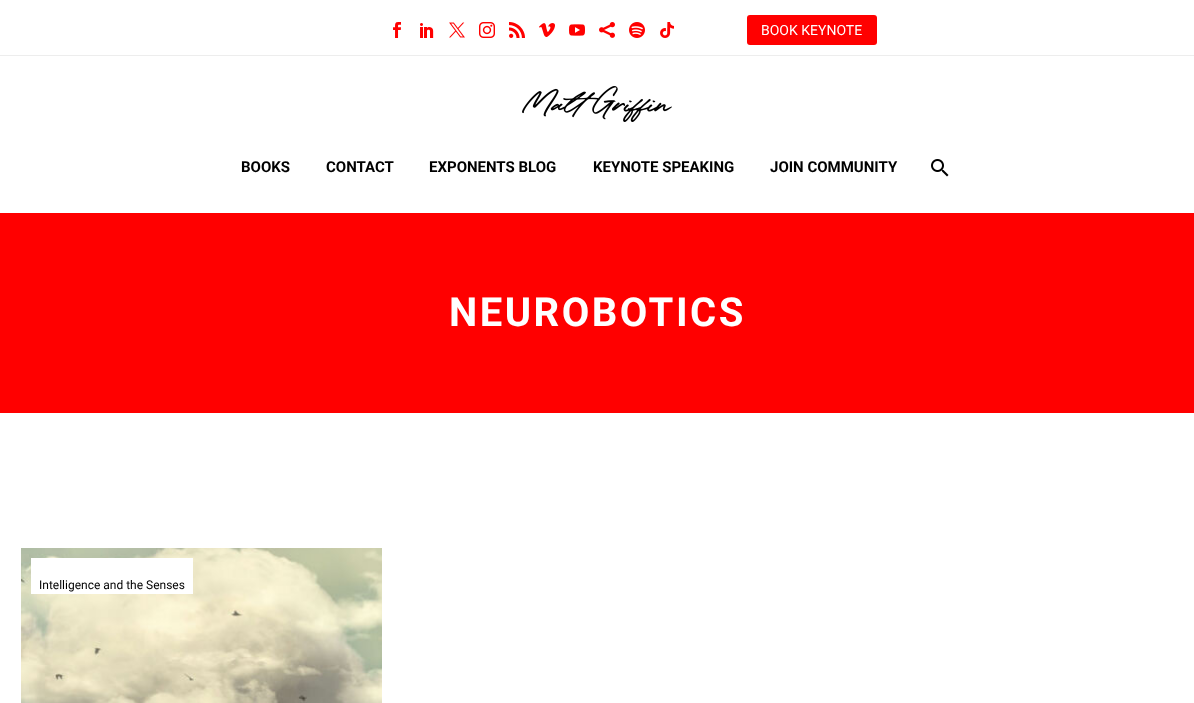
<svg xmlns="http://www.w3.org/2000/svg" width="1194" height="703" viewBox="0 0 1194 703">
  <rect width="100%" height="100%" fill="#ffffff"/>
  <rect x="0" y="55" width="1194" height="1" fill="#ededed"/>
  <image x="393" y="22" width="8" height="16" href="img1.png"/>
  <image x="420" y="23" width="14" height="15" href="img2.png"/>
  <image x="449" y="22" width="16" height="16" href="img3.png"/>
  <image x="479" y="22" width="16" height="16" href="img4.png"/>
  <image x="509" y="22" width="16" height="16" href="img5.png"/>
  <image x="539" y="23" width="16" height="14" href="img6.png"/>
  <image x="569" y="24" width="16" height="12" href="img7.png"/>
  <image x="599" y="22" width="16" height="16" href="img8.png"/>
  <image x="629" y="22" width="16" height="16" href="img9.png"/>
  <image x="660" y="22" width="14" height="16" href="img10.png"/>
  <rect x="747" y="15" width="130" height="30" rx="3" fill="#ff0000"/>
  <text x="761" y="35" font-family="Roboto" font-size="14" fill="#ffffff">BOOK KEYNOTE</text>
  <image x="522" y="86" width="150" height="36" href="img11.png"/>
  <text x="241" y="172" font-family="Roboto" font-size="15" font-weight="bold" fill="#000000">BOOKS</text>
  <text x="326" y="172" font-family="Roboto" font-size="15" font-weight="bold" fill="#000000">CONTACT</text>
  <text x="429" y="172" font-family="Roboto" font-size="15" font-weight="bold" fill="#000000">EXPONENTS BLOG</text>
  <text x="593" y="172" font-family="Roboto" font-size="15" font-weight="bold" fill="#000000">KEYNOTE SPEAKING</text>
  <text x="770" y="172" font-family="Roboto" font-size="15" font-weight="bold" fill="#000000">JOIN COMMUNITY</text>
  <image x="931" y="159" width="18" height="18" href="img12.png"/>
  <rect x="0" y="213" width="1194" height="200" fill="#ff0000"/>
  <text x="449" y="326" font-family="Roboto" font-size="40" font-weight="bold" letter-spacing="2.5" fill="#ffffff">NEUROBOTICS</text>
  <image x="21" y="548" width="361" height="155" href="img13.png"/>
  <rect x="31" y="558" width="162" height="36" fill="#ffffff"/>
  <text x="39" y="589" font-family="Roboto" font-size="12" fill="#000000">Intelligence and the Senses</text>
</svg>
